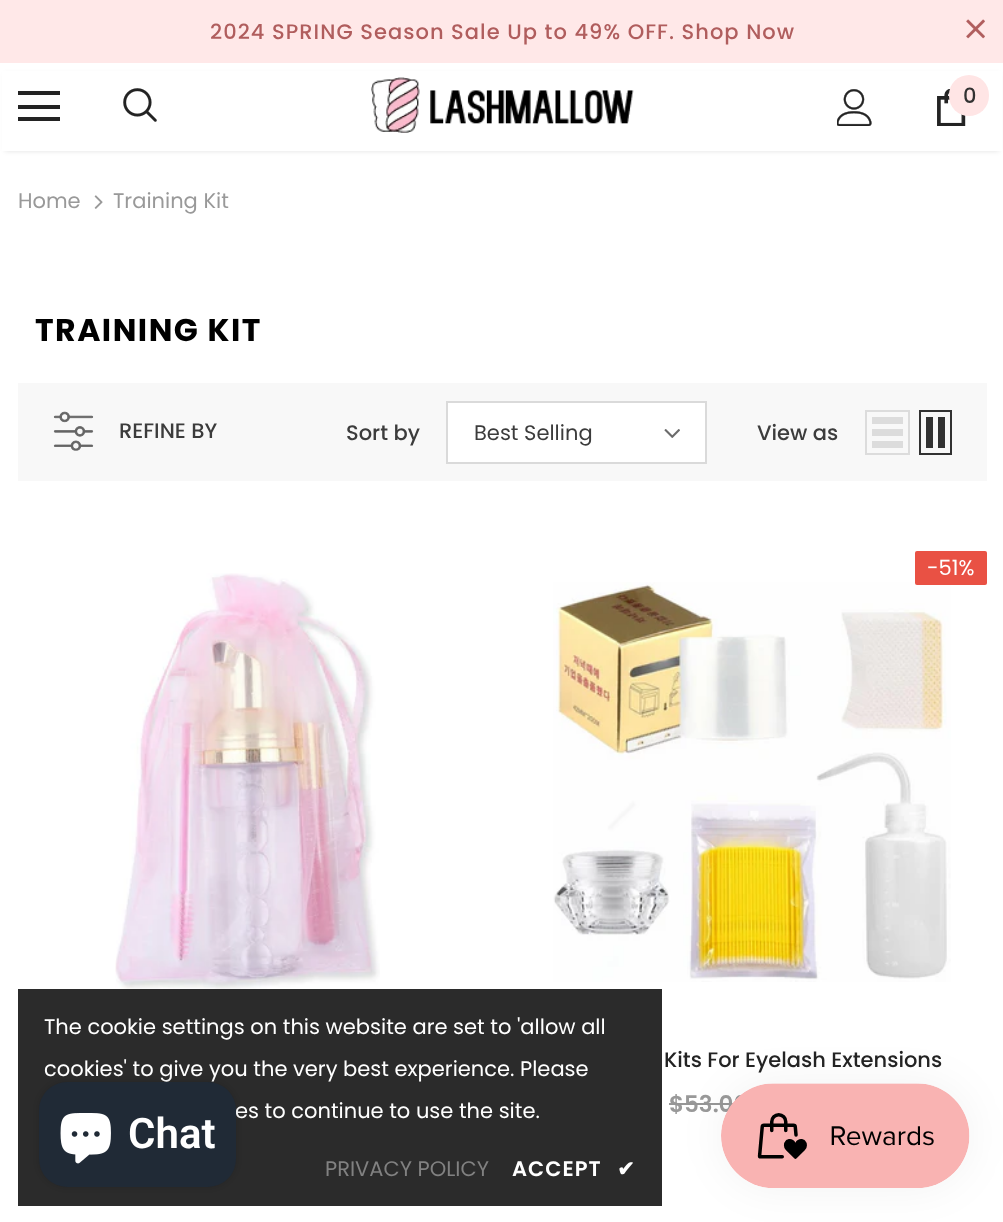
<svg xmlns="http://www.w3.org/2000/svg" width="1003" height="1222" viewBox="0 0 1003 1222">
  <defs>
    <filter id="blur1" x="-50%" y="-200%" width="200%" height="500%"><feGaussianBlur stdDeviation="2.5"/></filter>
    <filter id="blur2" x="-50%" y="-200%" width="200%" height="500%"><feGaussianBlur stdDeviation="4.5"/></filter>
    <filter id="blur3" x="-50%" y="-200%" width="200%" height="500%"><feGaussianBlur stdDeviation="22"/></filter>
  </defs>
  <rect width="100%" height="100%" fill="#ffffff"/>
  <rect x="0" y="0" width="1003" height="63" fill="#ffe8e8"/>
  <text x="210" y="39" font-family="Poppins" font-size="21" font-weight="500" letter-spacing="1.05" fill="#b05d5d">2024 SPRING Season Sale Up to 49% OFF. Shop Now</text>
  <image x="966" y="19" width="19" height="20" href="img1.png"/>
  <rect x="5" y="74" width="994" height="77" fill="#000000" fill-opacity="0.12" filter="url(#blur1)"/>
  <rect x="2" y="71" width="1000" height="80" fill="#ffffff"/>
  <rect x="18" y="91" width="42" height="4" fill="#232323"/>
  <rect x="18" y="105" width="42" height="4" fill="#232323"/>
  <rect x="18" y="117" width="42" height="4" fill="#232323"/>
  <image x="123" y="88" width="34" height="34" href="img2.png"/>
  <image x="371" y="77" width="263" height="56" href="img3.png"/>
  <image x="837" y="89" width="35" height="37" href="img4.png"/>
  <image x="937" y="89" width="29" height="37" href="img5.png"/>
  <rect x="949" y="75" width="40" height="41" rx="20" fill="#ffe5e5"/>
  <text x="963" y="103" font-family="Poppins" font-size="21" font-weight="500" fill="#323232">0</text>
  <text x="18" y="208" font-family="Poppins" font-size="21" fill="#999999">Home</text>
  <image x="94" y="195" width="9" height="14" href="img6.png"/>
  <text x="113" y="208" font-family="Poppins" font-size="21" fill="#999999">Training Kit</text>
  <text x="35" y="341" font-family="Poppins" font-size="31.5" font-weight="bold" letter-spacing="1.5" fill="#000000">TRAINING KIT</text>
  <rect x="18" y="383" width="969" height="98" fill="#f8f8f8"/>
  <image x="53" y="411" width="41" height="40" href="img7.png"/>
  <text x="119" y="438" font-family="Poppins" font-size="21" font-weight="500" fill="#3c3c3c">REFINE BY</text>
  <text x="346" y="440" font-family="Poppins" font-size="21" font-weight="500" fill="#3c3c3c">Sort by</text>
  <rect x="447" y="402" width="259" height="61" fill="#ffffff" stroke="#dadada" stroke-width="2"/>
  <text x="474" y="440" font-family="Poppins" font-size="21" fill="#3c3c3c">Best Selling</text>
  <image x="664" y="429" width="16" height="9" href="img8.png"/>
  <text x="757" y="440" font-family="Poppins" font-size="21" font-weight="500" fill="#3c3c3c">View as</text>
  <rect x="866" y="411" width="43" height="43" fill="none" stroke="#dcdcdc" stroke-width="2"/>
  <rect x="872" y="441" width="31" height="7" fill="#dcdcdc"/>
  <rect x="872" y="429" width="31" height="7" fill="#dcdcdc"/>
  <rect x="872" y="417" width="31" height="7" fill="#dcdcdc"/>
  <rect x="920" y="411" width="31" height="43" fill="none" stroke="#323232" stroke-width="2"/>
  <rect x="938" y="417" width="7" height="31" fill="#323232"/>
  <rect x="926" y="417" width="7" height="31" fill="#323232"/>
  <image x="115" y="573" width="265" height="418" href="img9.png"/>
  <image x="553" y="582" width="398" height="400" href="img10.png"/>
  <rect x="915" y="551" width="72" height="34" rx="2" fill="#e95144"/>
  <text x="927" y="575" font-family="Poppins" font-size="21" fill="#ffffff">-51%</text>
  <text x="664" y="1067" font-family="Poppins" font-size="21" font-weight="500" fill="#232323">Kits For Eyelash Extensions</text>
  <text x="669" y="1112" font-family="Poppins" font-size="23" font-weight="600" fill="#999999">$53.00</text>
  <rect x="669" y="1103" width="64" height="2" fill="#969696"/>
  <rect x="18" y="989" width="644" height="217" fill="#141414" fill-opacity="0.9"/>
  <text x="44" y="1034" font-family="Poppins" font-size="21" fill="#ffffff">The cookie settings on this website are set to 'allow all</text>
  <text x="44" y="1076" font-family="Poppins" font-size="21" fill="#ffffff">cookies' to give you the very best experience. Please</text>
  <text x="235" y="1118" font-family="Poppins" font-size="21" fill="#ffffff">es to continue to use the site.</text>
  <text x="325" y="1176" font-family="Poppins" font-size="21" fill="#818181">PRIVACY POLICY</text>
  <text x="512" y="1176" font-family="Poppins" font-size="21" font-weight="600" letter-spacing="1.05" fill="#ffffff">ACCEPT</text>
  <text x="617" y="1176" font-family="DejaVu Sans" font-size="21" font-weight="bold" letter-spacing="1.05" fill="#ffffff">✔</text>
  <rect x="39" y="1082" width="197" height="105" rx="28" fill="#000000" fill-opacity="0.15" filter="url(#blur2)"/>
  <rect x="39" y="1082" width="197" height="105" rx="28" fill="#202a36"/>
  <image x="60" y="1113" width="51" height="51" href="img11.png"/>
  <text x="128" y="1148" font-family="Roboto" font-size="42" font-weight="600" fill="#ffffff">Chat</text>
  <rect x="721" y="1083" width="249" height="105" rx="52.5" fill="#000000" fill-opacity="0.05" filter="url(#blur3)"/>
  <image x="721" y="1083" width="249" height="105" href="img12.png"/>
</svg>
